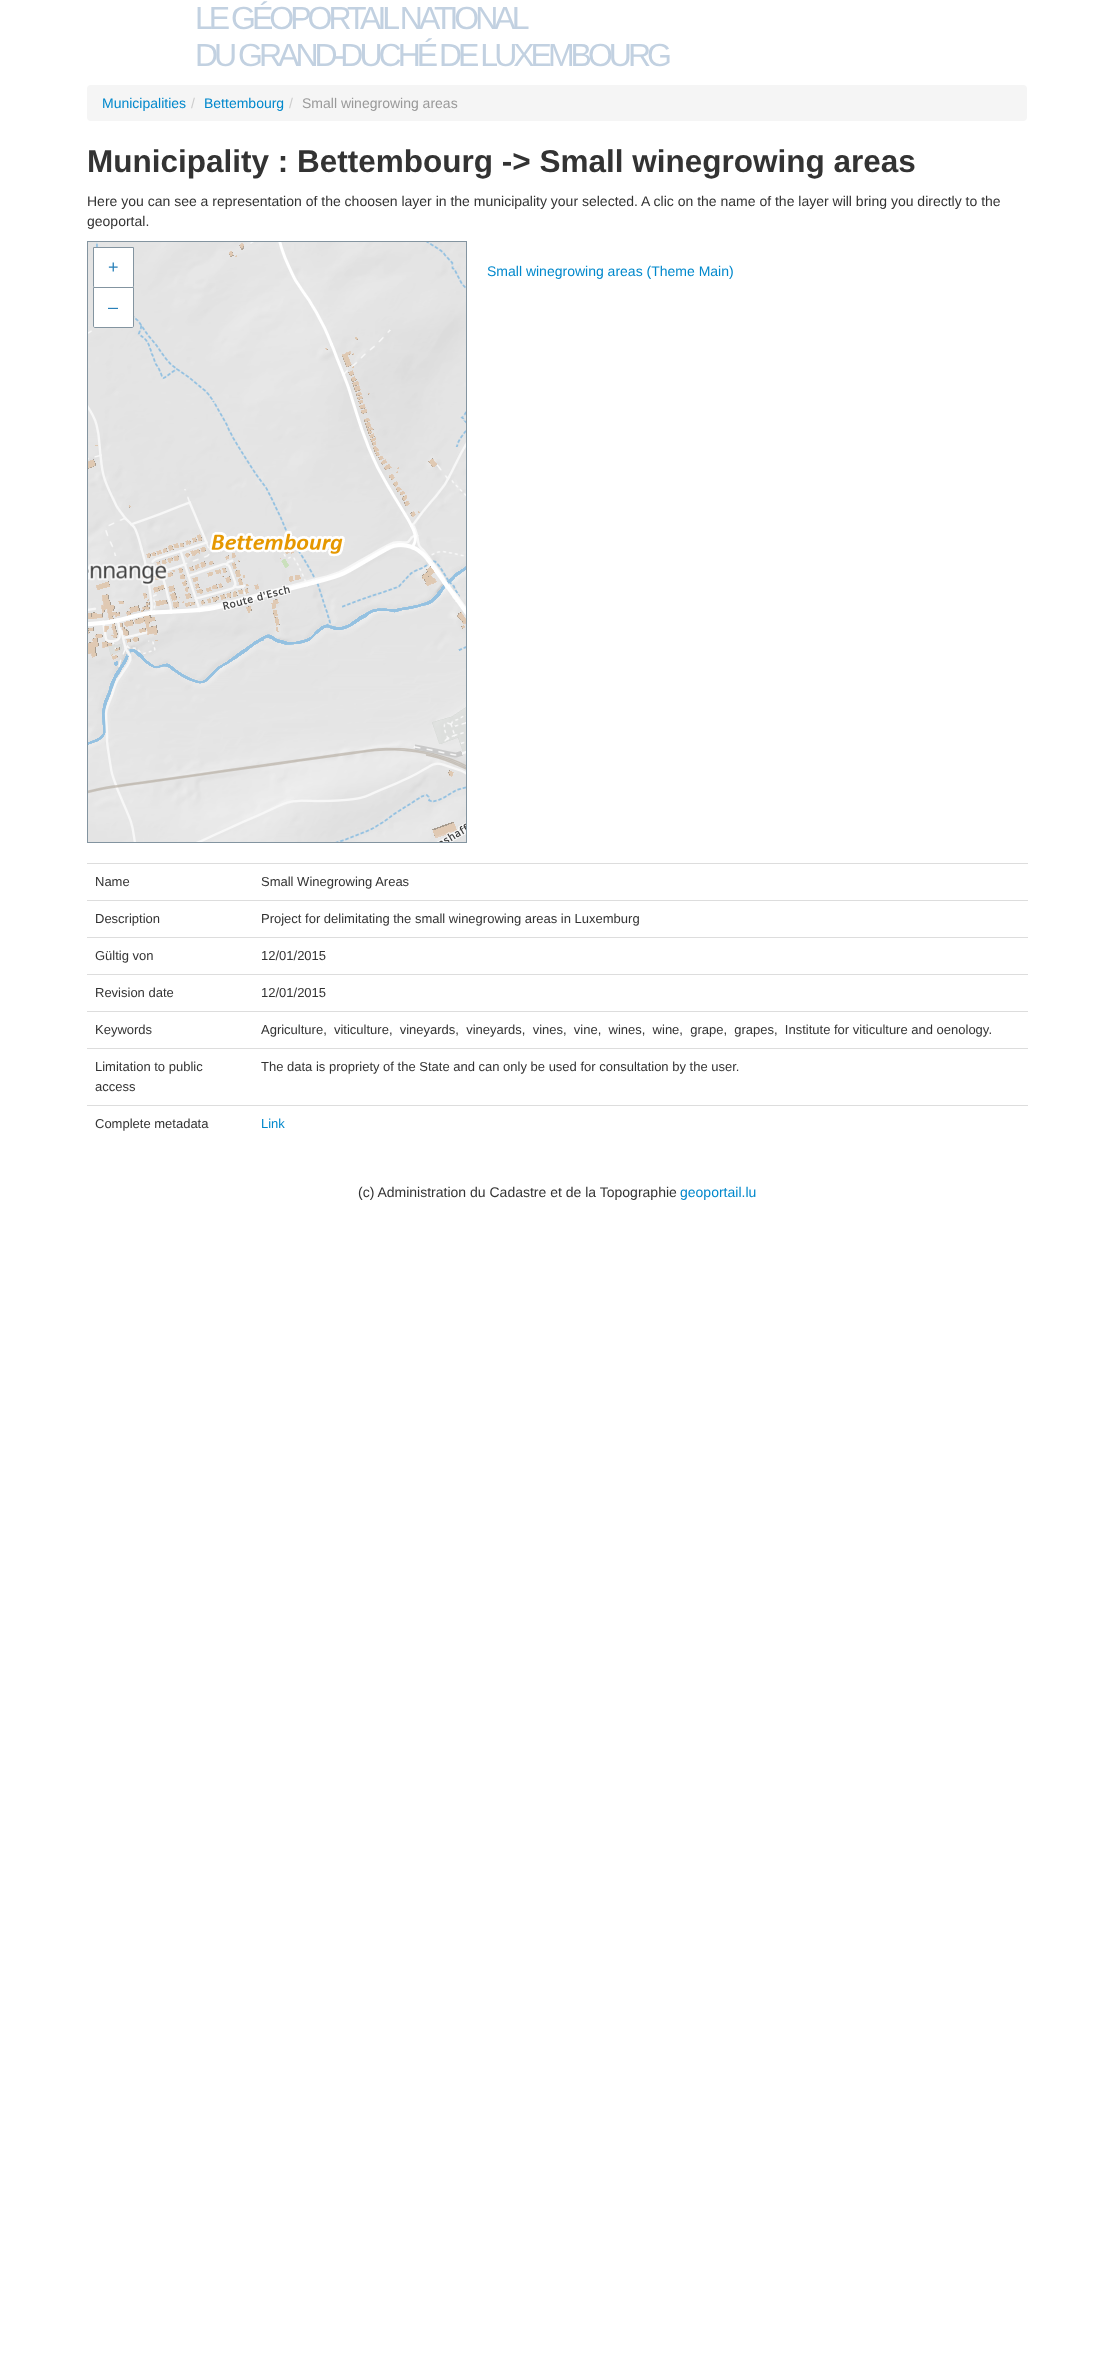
<svg xmlns="http://www.w3.org/2000/svg" width="1114" height="2372" viewBox="0 0 1114 2372">
  <rect width="100%" height="100%" fill="#ffffff"/>
  <text x="195" y="29" font-family="Liberation Sans" font-size="32" letter-spacing="-4" fill="#c2d1e1">LE GÉOPORTAIL NATIONAL</text>
  <text x="195" y="66" font-family="Liberation Sans" font-size="32" letter-spacing="-4" fill="#c2d1e1">DU GRAND-DUCHÉ DE LUXEMBOURG</text>
  <rect x="87" y="85" width="940" height="36" rx="4" fill="#f5f5f5"/>
  <text x="102" y="108" font-family="Liberation Sans" font-size="14" fill="#0088cc">Municipalities</text>
  <text x="191" y="108" font-family="Liberation Sans" font-size="14" fill="#cccccc">/</text>
  <text x="204" y="108" font-family="Liberation Sans" font-size="14" fill="#0088cc">Bettembourg</text>
  <text x="289" y="108" font-family="Liberation Sans" font-size="14" fill="#cccccc">/</text>
  <text x="302" y="108" font-family="Liberation Sans" font-size="14" fill="#999999">Small winegrowing areas</text>
  <text x="87" y="172" font-family="Liberation Sans" font-size="31.5" font-weight="bold" fill="#333333">Municipality : Bettembourg -&gt; Small winegrowing areas</text>
  <text x="87" y="206" font-family="Liberation Sans" font-size="14" fill="#333333">Here you can see a representation of the choosen layer in the municipality your selected. A clic on the name of the layer will bring you directly to the</text>
  <text x="87" y="226" font-family="Liberation Sans" font-size="14" fill="#333333">geoportal.</text>
  <rect x="87.5" y="241.5" width="379" height="601" fill="none" stroke="#8394a0"/>
  <image x="88" y="242" width="378" height="600" href="img1.png"/>
  <image x="209" y="531" width="136" height="26" href="img2.png"/>
  <path d="M93.5 247.5H133.5V286C133.5 287 133 287.5 132 287.5H95C94 287.5 93.5 287 93.5 286Z" fill="#ffffff" stroke="#8394a0"/>
  <text x="108" y="273" font-family="Liberation Sans" font-size="18" fill="#2980b9">+</text>
  <path d="M93.5 287.5H133.5V326C133.5 327 133 327.5 132 327.5H95C94 327.5 93.5 327 93.5 326Z" fill="#ffffff" stroke="#8394a0"/>
  <text x="108" y="313" font-family="Liberation Sans" font-size="18" fill="#2980b9">–</text>
  <text x="487" y="276" font-family="Liberation Sans" font-size="14" fill="#0088cc">Small winegrowing areas (Theme Main)</text>
  <text x="95" y="886" font-family="Liberation Sans" font-size="13" fill="#333333">Name</text>
  <rect x="87" y="863" width="941" height="1" fill="#dddddd"/>
  <text x="261" y="886" font-family="Liberation Sans" font-size="13" fill="#333333">Small Winegrowing Areas</text>
  <text x="95" y="923" font-family="Liberation Sans" font-size="13" fill="#333333">Description</text>
  <rect x="87" y="900" width="941" height="1" fill="#dddddd"/>
  <text x="261" y="923" font-family="Liberation Sans" font-size="13" fill="#333333">Project for delimitating the small winegrowing areas in Luxemburg</text>
  <text x="95" y="960" font-family="Liberation Sans" font-size="13" fill="#333333">Gültig von</text>
  <rect x="87" y="937" width="941" height="1" fill="#dddddd"/>
  <text x="261" y="960" font-family="Liberation Sans" font-size="13" fill="#333333">12/01/2015</text>
  <text x="95" y="997" font-family="Liberation Sans" font-size="13" fill="#333333">Revision date</text>
  <rect x="87" y="974" width="941" height="1" fill="#dddddd"/>
  <text x="261" y="997" font-family="Liberation Sans" font-size="13" fill="#333333">12/01/2015</text>
  <text x="95" y="1034" font-family="Liberation Sans" font-size="13" fill="#333333">Keywords</text>
  <rect x="87" y="1011" width="941" height="1" fill="#dddddd"/>
  <text x="261" y="1034" font-family="Liberation Sans" font-size="13" fill="#333333" xml:space="preserve">Agriculture,  viticulture,  vineyards,  vineyards,  vines,  vine,  wines,  wine,  grape,  grapes,  Institute for viticulture and oenology.</text>
  <text x="95" y="1071" font-family="Liberation Sans" font-size="13" fill="#333333">Limitation to public</text>
  <text x="95" y="1091" font-family="Liberation Sans" font-size="13" fill="#333333">access</text>
  <rect x="87" y="1048" width="941" height="1" fill="#dddddd"/>
  <text x="261" y="1071" font-family="Liberation Sans" font-size="13" fill="#333333">The data is propriety of the State and can only be used for consultation by the user.</text>
  <text x="95" y="1128" font-family="Liberation Sans" font-size="13" fill="#333333">Complete metadata</text>
  <rect x="87" y="1105" width="941" height="1" fill="#dddddd"/>
  <text x="261" y="1128" font-family="Liberation Sans" font-size="13" fill="#0088cc">Link</text>
  <text x="358" y="1197" font-family="Liberation Sans" font-size="14" fill="#333333">(c) Administration du Cadastre et de la Topographie</text>
  <text x="680" y="1197" font-family="Liberation Sans" font-size="14" fill="#0088cc">geoportail.lu</text>
</svg>
